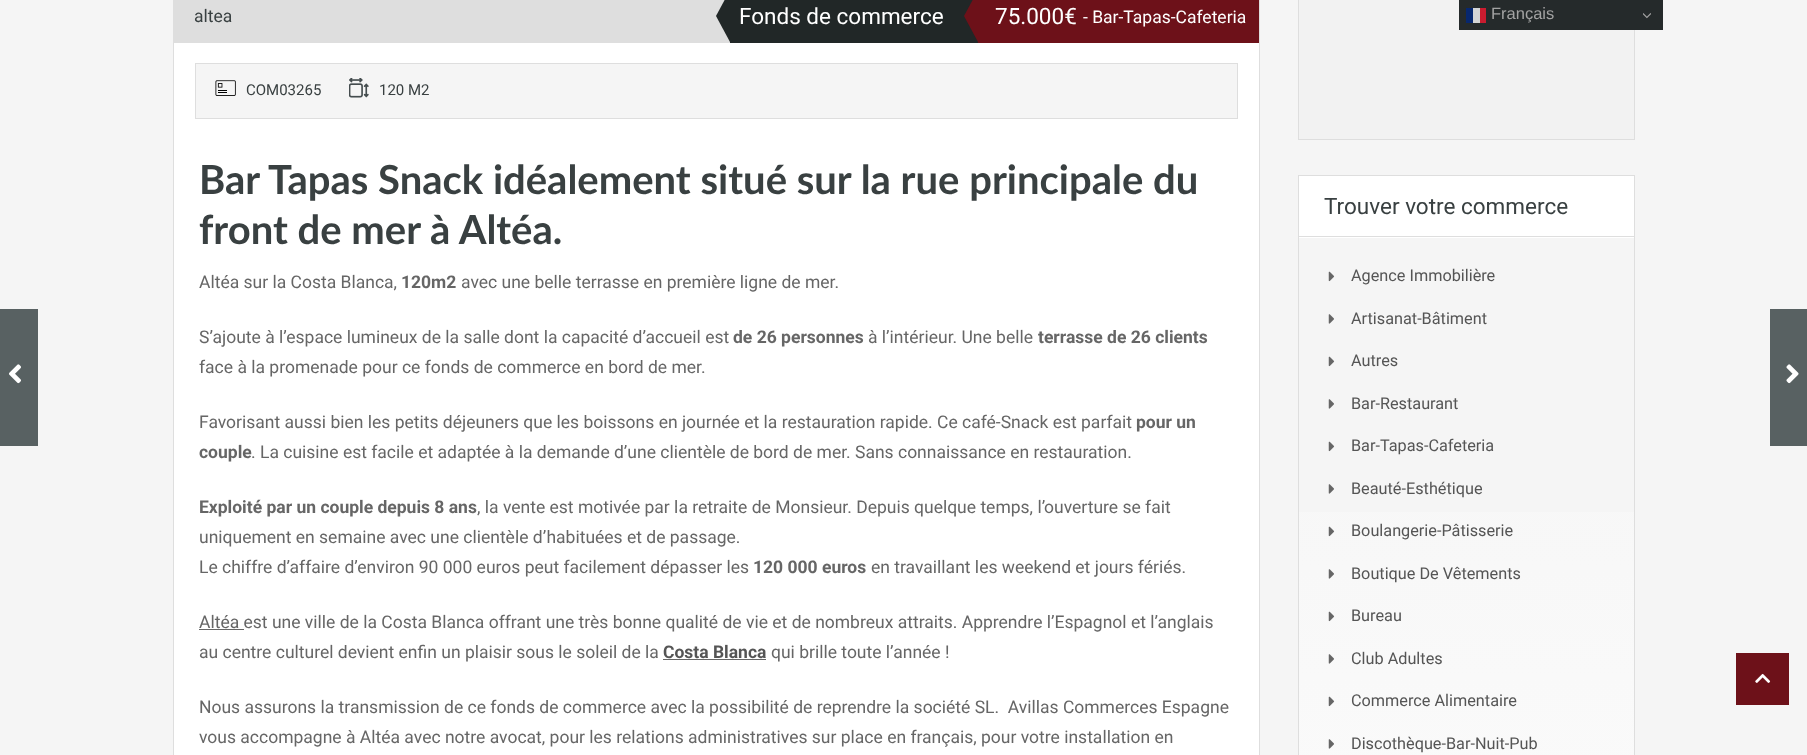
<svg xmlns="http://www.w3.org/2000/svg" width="1807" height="755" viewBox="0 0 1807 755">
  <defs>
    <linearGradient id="g1" gradientUnits="userSpaceOnUse" x1="1466" y1="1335" x2="1466" y2="238"><stop offset="0" stop-color="#ffffff"/><stop offset="1" stop-color="#f5f5f5"/></linearGradient>
  </defs>
  <rect width="100%" height="100%" fill="#f5f5f5"/>
  <rect x="1298.5" y="-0.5" width="336" height="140" fill="#f2f2f2" stroke="#dedede"/>
  <rect x="1459" y="0" width="204" height="30" fill="#252a2b"/>
  <rect x="1466" y="8" width="7" height="15" fill="#07276e"/>
  <rect x="1473" y="8" width="7" height="15" fill="#d3d4d5"/>
  <rect x="1480" y="8" width="6" height="15" fill="#ca1c2f"/>
  <text x="1491" y="19" font-family="Liberation Sans" font-size="16.5" fill="#a3a3a3">Français</text>
  <image x="1643" y="13" width="8" height="6" href="img1.png"/>
  <rect x="0" y="309" width="38" height="137" fill="#586162"/>
  <image x="9" y="364" width="12" height="20" href="img2.png"/>
  <rect x="1259" y="0" width="1" height="755" fill="#dedede"/>
  <rect x="173" y="0" width="1" height="755" fill="#dedede"/>
  <rect x="174" y="43" width="1085" height="712" fill="#ffffff"/>
  <rect x="174" y="0" width="556" height="43" fill="#dedede"/>
  <text x="194" y="22" font-family="Roboto" font-size="17.5" fill="#394041">altea</text>
  <rect x="730" y="0" width="248" height="43" fill="#212727"/>
  <path d="M716 16L730-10V42Z" fill="#212727"/>
  <text x="739" y="24" font-family="Roboto" font-size="22.5" fill="#ffffff">Fonds de commerce</text>
  <rect x="978" y="0" width="281" height="43" fill="#6d1119"/>
  <path d="M964 16L978-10V42Z" fill="#6d1119"/>
  <text x="995" y="24" font-family="Roboto" font-size="22.5" fill="#ffffff">75.000€</text>
  <text x="1083" y="23" font-family="Roboto" font-size="17.5" fill="#ffffff">- Bar-Tapas-Cafeteria</text>
  <rect x="195.5" y="63.5" width="1042" height="55" fill="#f5f5f5" stroke="#dedede"/>
  <image x="215" y="80" width="21" height="16" href="img3.png"/>
  <text x="246" y="95" font-family="Roboto" font-size="15" fill="#394041">COM03265</text>
  <image x="349" y="78" width="20" height="20" href="img4.png"/>
  <text x="379" y="95" font-family="Roboto" font-size="15" fill="#394041">120 M2</text>
  <text x="199" y="194" font-family="Lato" font-size="40" font-weight="bold" fill="#394041">Bar Tapas Snack idéalement situé sur la rue principale du</text>
  <text x="199" y="244" font-family="Lato" font-size="40" font-weight="bold" fill="#394041">front de mer à Altéa.</text>
  <text x="199" y="288" font-family="Roboto" font-size="17.5" fill="#666666">Altéa sur la Costa Blanca,</text>
  <text x="401" y="288" font-family="Roboto" font-size="17.5" font-weight="bold" fill="#666666">120m2</text>
  <text x="461" y="288" font-family="Roboto" font-size="17.5" fill="#666666">avec une belle terrasse en première ligne de mer.</text>
  <text x="199" y="343" font-family="Roboto" font-size="17.5" fill="#666666">S’ajoute à l’espace lumineux de la salle dont la capacité d’accueil est</text>
  <text x="733" y="343" font-family="Roboto" font-size="17.5" font-weight="bold" fill="#666666">de 26 personnes</text>
  <text x="868" y="343" font-family="Roboto" font-size="17.5" fill="#666666">à l’intérieur. Une belle</text>
  <text x="1038" y="343" font-family="Roboto" font-size="17.5" font-weight="bold" fill="#666666">terrasse de 26 clients</text>
  <text x="199" y="373" font-family="Roboto" font-size="17.5" fill="#666666">face à la promenade pour ce fonds de commerce en bord de mer.</text>
  <text x="199" y="428" font-family="Roboto" font-size="17.5" fill="#666666">Favorisant aussi bien les petits déjeuners que les boissons en journée et la restauration rapide. Ce café-Snack est parfait</text>
  <text x="1136" y="428" font-family="Roboto" font-size="17.5" font-weight="bold" fill="#666666">pour un</text>
  <text x="199" y="458" font-family="Roboto" font-size="17.5" font-weight="bold" fill="#666666">couple</text>
  <text x="251" y="458" font-family="Roboto" font-size="17.5" fill="#666666">. La cuisine est facile et adaptée à la demande d’une clientèle de bord de mer. Sans connaissance en restauration.</text>
  <text x="199" y="513" font-family="Roboto" font-size="17.5" font-weight="bold" fill="#666666">Exploité par un couple depuis 8 ans</text>
  <text x="477" y="513" font-family="Roboto" font-size="17.5" fill="#666666">, la vente est motivée par la retraite de Monsieur. Depuis quelque temps, l’ouverture se fait</text>
  <text x="199" y="543" font-family="Roboto" font-size="17.5" fill="#666666">uniquement en semaine avec une clientèle d’habituées et de passage.</text>
  <text x="199" y="573" font-family="Roboto" font-size="17.5" fill="#666666">Le chiffre d’affaire d’environ 90 000 euros peut facilement dépasser les</text>
  <text x="753" y="573" font-family="Roboto" font-size="17.5" font-weight="bold" fill="#666666">120 000 euros</text>
  <text x="871" y="573" font-family="Roboto" font-size="17.5" fill="#666666">en travaillant les weekend et jours fériés.</text>
  <rect x="199" y="629" width="45" height="1" fill="#666666"/>
  <text x="199" y="628" font-family="Roboto" font-size="17.5" fill="#666666">Altéa est une ville de la Costa Blanca offrant une très bonne qualité de vie et de nombreux attraits. Apprendre l’Espagnol et l’anglais</text>
  <text x="199" y="658" font-family="Roboto" font-size="17.5" fill="#666666">au centre culturel devient enfin un plaisir sous le soleil de la</text>
  <text x="663" y="658" font-family="Roboto" font-size="17.5" font-weight="bold" fill="#555555">Costa Blanca</text>
  <rect x="663" y="659" width="103" height="1" fill="#666666"/>
  <text x="771" y="658" font-family="Roboto" font-size="17.5" fill="#666666">qui brille toute l’année !</text>
  <text x="199" y="713" font-family="Roboto" font-size="17.5" fill="#666666" xml:space="preserve">Nous assurons la transmission de ce fonds de commerce avec la possibilité de reprendre la société SL.  Avillas Commerces Espagne</text>
  <text x="199" y="743" font-family="Roboto" font-size="17.5" fill="#666666">vous accompagne à Altéa avec notre avocat, pour les relations administratives sur place en français, pour votre installation en</text>
  <rect x="1298.5" y="175.5" width="336" height="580" fill="none" stroke="#dedede"/>
  <rect x="1299" y="176" width="335" height="62" fill="#ffffff"/>
  <rect x="1299" y="236" width="335" height="1" fill="#dedede"/>
  <text x="1324" y="214" font-family="Roboto" font-size="22.5" fill="#394041">Trouver votre commerce</text>
  <rect x="1299" y="512" width="335" height="243" fill="url(#g1)"/>
  <image x="1328" y="271" width="7" height="11" href="img5.png"/>
  <text x="1351" y="281" font-family="Roboto" font-size="16.25" fill="#555555">Agence Immobilière</text>
  <image x="1328" y="314" width="6" height="10" href="img6.png"/>
  <text x="1351" y="324" font-family="Roboto" font-size="16.25" fill="#555555">Artisanat-Bâtiment</text>
  <image x="1328" y="356" width="7" height="11" href="img7.png"/>
  <text x="1351" y="366" font-family="Roboto" font-size="16.25" fill="#555555">Autres</text>
  <image x="1328" y="399" width="6" height="10" href="img8.png"/>
  <text x="1351" y="409" font-family="Roboto" font-size="16.25" fill="#555555">Bar-Restaurant</text>
  <image x="1328" y="441" width="7" height="11" href="img9.png"/>
  <text x="1351" y="451" font-family="Roboto" font-size="16.25" fill="#555555">Bar-Tapas-Cafeteria</text>
  <image x="1328" y="484" width="6" height="10" href="img10.png"/>
  <text x="1351" y="494" font-family="Roboto" font-size="16.25" fill="#555555">Beauté-Esthétique</text>
  <image x="1328" y="526" width="7" height="11" href="img11.png"/>
  <text x="1351" y="536" font-family="Roboto" font-size="16.25" fill="#555555">Boulangerie-Pâtisserie</text>
  <image x="1328" y="569" width="6" height="10" href="img12.png"/>
  <text x="1351" y="579" font-family="Roboto" font-size="16.25" fill="#555555">Boutique De Vêtements</text>
  <image x="1328" y="611" width="7" height="11" href="img11.png"/>
  <text x="1351" y="621" font-family="Roboto" font-size="16.25" fill="#555555">Bureau</text>
  <image x="1328" y="654" width="6" height="10" href="img13.png"/>
  <text x="1351" y="664" font-family="Roboto" font-size="16.25" fill="#555555">Club Adultes</text>
  <image x="1328" y="696" width="7" height="11" href="img14.png"/>
  <text x="1351" y="706" font-family="Roboto" font-size="16.25" fill="#555555">Commerce Alimentaire</text>
  <image x="1328" y="739" width="6" height="10" href="img15.png"/>
  <text x="1351" y="749" font-family="Roboto" font-size="16.25" fill="#555555">Discothèque-Bar-Nuit-Pub</text>
  <rect x="1770" y="309" width="37" height="137" fill="#586162"/>
  <image x="1786" y="364" width="13" height="20" href="img16.png"/>
  <rect x="1736" y="653" width="53" height="52" fill="#6d1119"/>
  <image x="1755" y="673" width="16" height="10" href="img17.png"/>
</svg>
